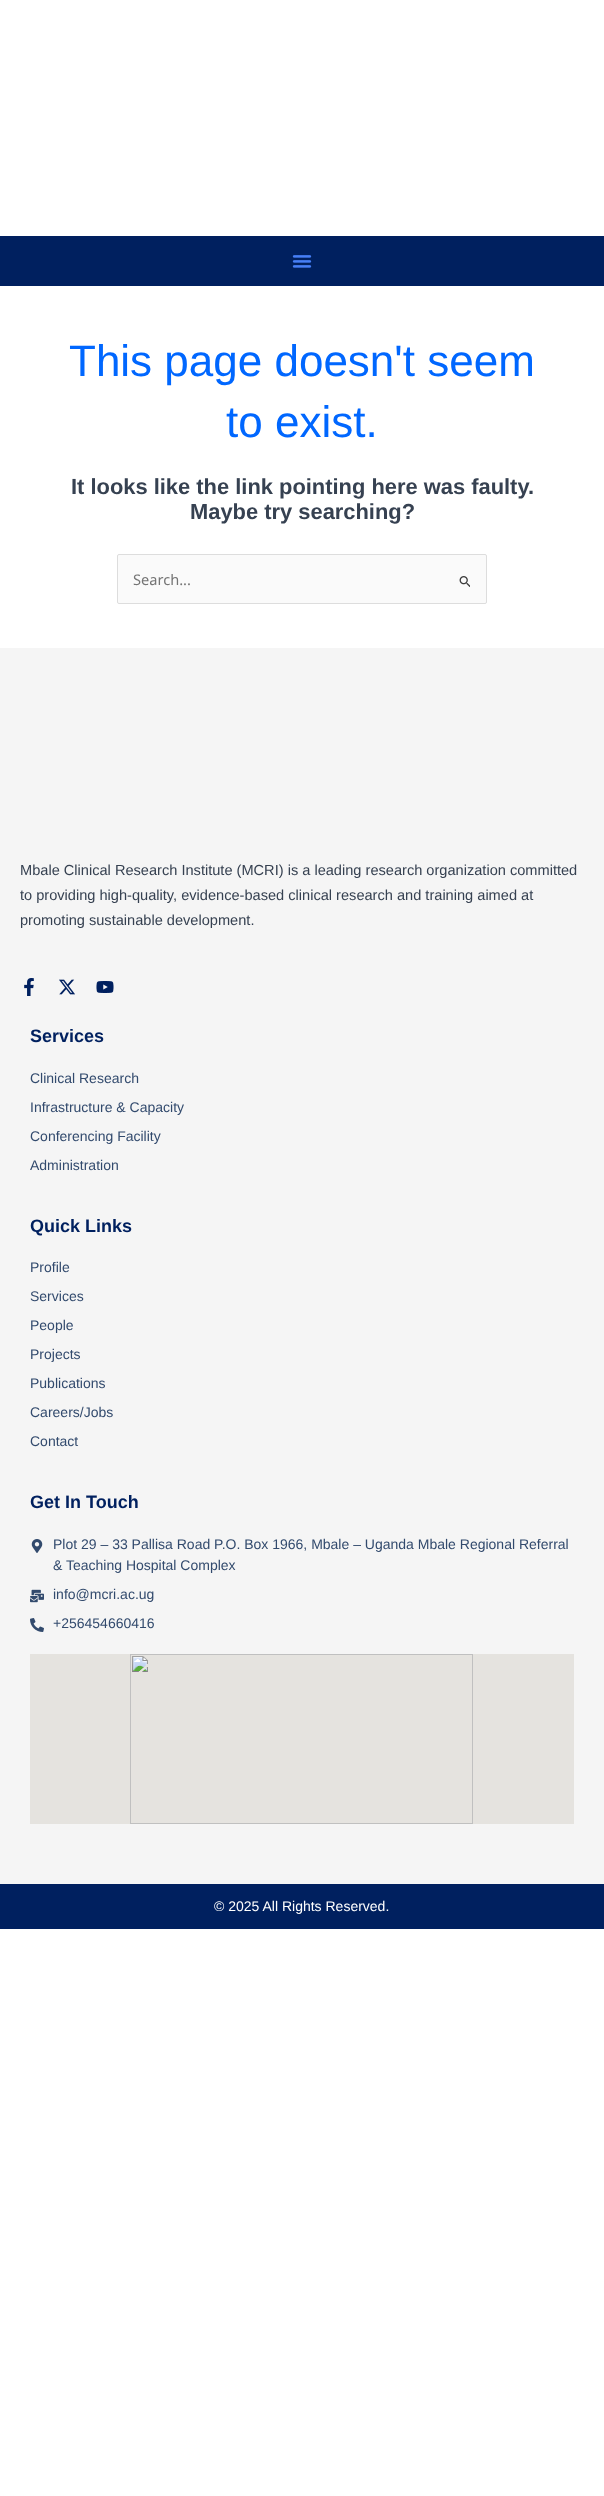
<svg xmlns="http://www.w3.org/2000/svg" width="604" height="2496" viewBox="0 0 604 2496">
  <rect width="100%" height="100%" fill="#ffffff"/>
  <rect x="0" y="236" width="604" height="50" fill="#00205f"/>
  <image x="292" y="255" width="20" height="13" href="img1.png"/>
  <text x="69" y="376" font-family="Liberation Sans" font-size="44" fill="#0067ff">This page doesn't seem</text>
  <text x="226" y="437" font-family="Liberation Sans" font-size="44" fill="#0067ff">to exist.</text>
  <text x="71" y="494" font-family="Liberation Sans" font-size="21.9" font-weight="bold" fill="#364151">It looks like the link pointing here was faulty.</text>
  <text x="190" y="519" font-family="Liberation Sans" font-size="21.9" font-weight="bold" fill="#364151">Maybe try searching?</text>
  <rect x="117.5" y="554.5" width="369" height="49" rx="1.5" fill="#fafafa" stroke="#dddddd"/>
  <text x="133" y="585" font-family="Noto Sans" font-size="14.6" fill="#757575">Search...</text>
  <image x="459" y="576" width="11" height="11" href="img2.png"/>
  <rect x="0" y="648" width="604" height="1236" fill="#f5f5f5"/>
  <text x="20" y="875" font-family="Liberation Sans" font-size="14.6" fill="#364151">Mbale Clinical Research Institute (MCRI) is a leading research organization committed</text>
  <text x="20" y="900" font-family="Liberation Sans" font-size="14.6" fill="#364151">to providing high-quality, evidence-based clinical research and training aimed at</text>
  <text x="20" y="925" font-family="Liberation Sans" font-size="14.6" fill="#364151">promoting sustainable development.</text>
  <image x="24" y="978" width="10" height="18" href="img3.png"/>
  <image x="59" y="979" width="16" height="16" href="img4.png"/>
  <image x="96" y="981" width="18" height="12" href="img5.png"/>
  <text x="30" y="1042" font-family="Liberation Sans" font-size="18" font-weight="bold" fill="#00205f">Services</text>
  <text x="30" y="1083" font-family="Liberation Sans" font-size="14" fill="#324a6d">Clinical Research</text>
  <text x="30" y="1112" font-family="Liberation Sans" font-size="14" fill="#324a6d">Infrastructure &amp; Capacity</text>
  <text x="30" y="1141" font-family="Liberation Sans" font-size="14" fill="#324a6d">Conferencing Facility</text>
  <text x="30" y="1170" font-family="Liberation Sans" font-size="14" fill="#324a6d">Administration</text>
  <text x="30" y="1232" font-family="Liberation Sans" font-size="18" font-weight="bold" fill="#00205f">Quick Links</text>
  <text x="30" y="1272" font-family="Liberation Sans" font-size="14" fill="#324a6d">Profile</text>
  <text x="30" y="1301" font-family="Liberation Sans" font-size="14" fill="#324a6d">Services</text>
  <text x="30" y="1330" font-family="Liberation Sans" font-size="14" fill="#324a6d">People</text>
  <text x="30" y="1359" font-family="Liberation Sans" font-size="14" fill="#324a6d">Projects</text>
  <text x="30" y="1388" font-family="Liberation Sans" font-size="14" fill="#324a6d">Publications</text>
  <text x="30" y="1417" font-family="Liberation Sans" font-size="14" fill="#324a6d">Careers/Jobs</text>
  <text x="30" y="1446" font-family="Liberation Sans" font-size="14" fill="#324a6d">Contact</text>
  <text x="30" y="1508" font-family="Liberation Sans" font-size="18" font-weight="bold" fill="#00205f">Get In Touch</text>
  <image x="31" y="1539" width="12" height="14" href="img6.png"/>
  <text x="53" y="1549" font-family="Liberation Sans" font-size="14" fill="#324a6d">Plot 29 – 33 Pallisa Road P.O. Box 1966, Mbale – Uganda Mbale Regional Referral</text>
  <text x="53" y="1570" font-family="Liberation Sans" font-size="14" fill="#324a6d">&amp; Teaching Hospital Complex</text>
  <image x="30" y="1589" width="14" height="14" href="img7.png"/>
  <text x="53" y="1599" font-family="Liberation Sans" font-size="14" fill="#324a6d">info@mcri.ac.ug</text>
  <image x="30" y="1618" width="14" height="14" href="img8.png"/>
  <text x="53" y="1628" font-family="Liberation Sans" font-size="14" fill="#324a6d">+256454660416</text>
  <image x="30" y="1654" width="544" height="170" href="img9.png"/>
  <rect x="0" y="1884" width="604" height="45" fill="#00205f"/>
  <text x="214" y="1911" font-family="Liberation Sans" font-size="14" fill="#ffffff">© 2025 All Rights Reserved.</text>
</svg>
